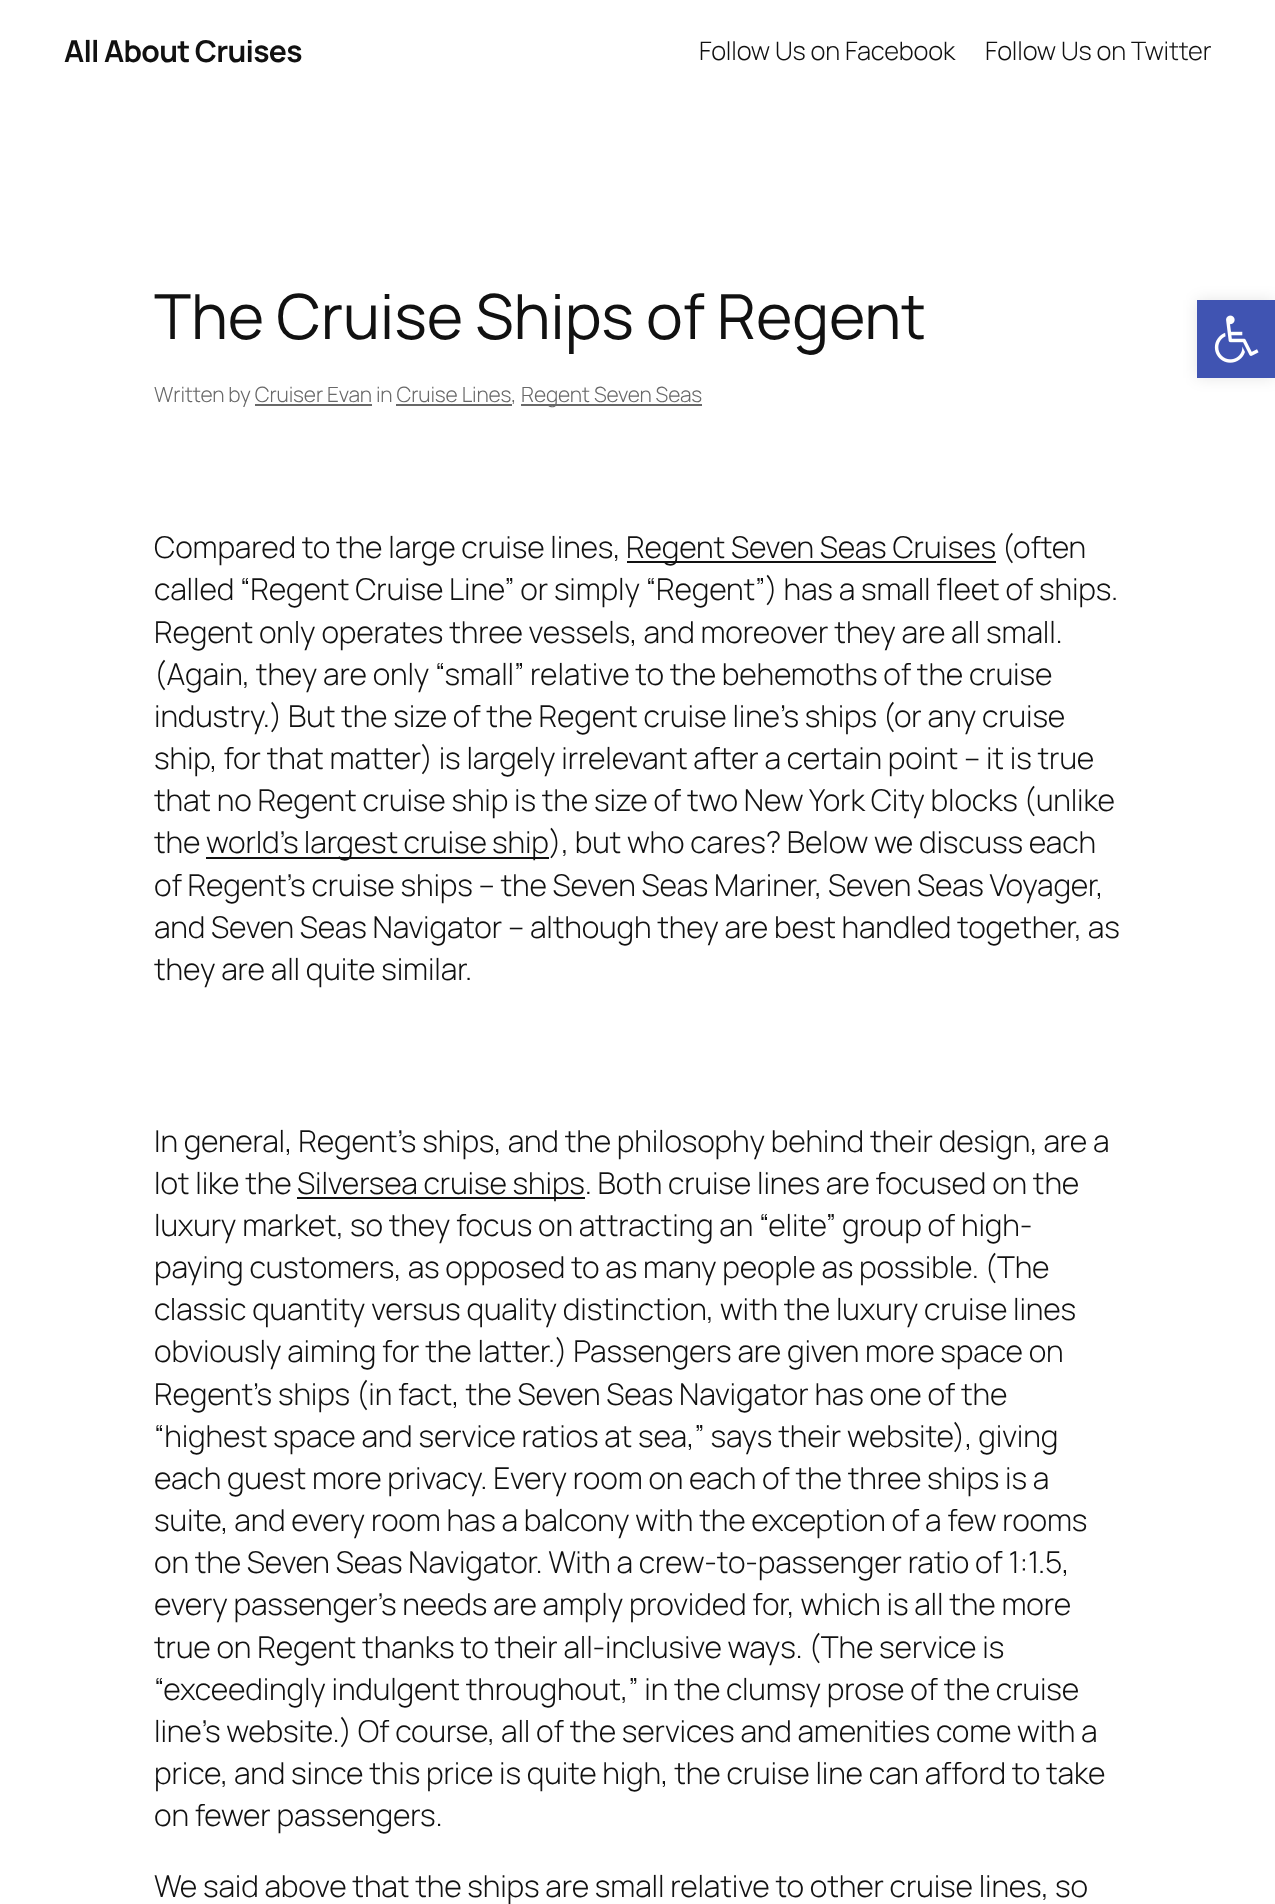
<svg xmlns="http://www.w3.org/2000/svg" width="1275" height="1904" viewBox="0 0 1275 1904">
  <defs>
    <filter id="blur1" x="-50%" y="-200%" width="200%" height="500%"><feGaussianBlur stdDeviation="7.5"/></filter>
  </defs>
  <rect width="100%" height="100%" fill="#ffffff"/>
  <text x="64" y="62" font-family="Manrope" font-size="30.1" font-weight="bold" letter-spacing="-0.75" fill="#111111">All About Cruises</text>
  <text x="699" y="60" font-family="Manrope" font-size="25.5" font-weight="300" letter-spacing="-0.15" fill="#111111">Follow Us on Facebook</text>
  <text x="985" y="60" font-family="Manrope" font-size="25.5" font-weight="300" letter-spacing="-0.15" fill="#111111">Follow Us on Twitter</text>
  <text x="154" y="339" font-family="Manrope" font-size="62.25" letter-spacing="-0.15" fill="#111111">The Cruise Ships of Regent</text>
  <text x="154" y="402" font-family="Manrope" font-size="21" font-weight="300" letter-spacing="-0.15" fill="#686868">Written by Cruiser Evan in Cruise Lines,</text>
  <rect x="396" y="404" width="116" height="2" fill="#686868"/>
  <rect x="521" y="404" width="181" height="2" fill="#686868"/>
  <text x="521" y="402" font-family="Manrope" font-size="21" font-weight="300" letter-spacing="-0.15" fill="#686868">Regent Seven Seas</text>
  <rect x="255" y="404" width="117" height="2" fill="#686868"/>
  <text x="154" y="558" font-family="Manrope" font-size="30.1" font-weight="300" letter-spacing="-0.15" fill="#111111">Compared to the large cruise lines,</text>
  <rect x="627" y="561" width="369" height="2" fill="#111111"/>
  <text x="626" y="558" font-family="Manrope" font-size="30.1" font-weight="300" letter-spacing="-0.15" fill="#111111">Regent Seven Seas Cruises (often</text>
  <text x="154" y="600" font-family="Manrope" font-size="30.1" font-weight="300" letter-spacing="-0.15" fill="#111111">called “Regent Cruise Line” or simply “Regent”) has a small fleet of ships.</text>
  <text x="154" y="643" font-family="Manrope" font-size="30.1" font-weight="300" letter-spacing="-0.15" fill="#111111">Regent only operates three vessels, and moreover they are all small.</text>
  <text x="154" y="685" font-family="Manrope" font-size="30.1" font-weight="300" letter-spacing="-0.15" fill="#111111">(Again, they are only “small” relative to the behemoths of the cruise</text>
  <text x="154" y="727" font-family="Manrope" font-size="30.1" font-weight="300" letter-spacing="-0.15" fill="#111111">industry.) But the size of the Regent cruise line’s ships (or any cruise</text>
  <text x="154" y="769" font-family="Manrope" font-size="30.1" font-weight="300" letter-spacing="-0.15" fill="#111111">ship, for that matter) is largely irrelevant after a certain point – it is true</text>
  <text x="154" y="811" font-family="Manrope" font-size="30.1" font-weight="300" letter-spacing="-0.15" fill="#111111">that no Regent cruise ship is the size of two New York City blocks (unlike</text>
  <text x="154" y="853" font-family="Manrope" font-size="30.1" font-weight="300" letter-spacing="-0.15" fill="#111111">the</text>
  <rect x="206" y="857" width="343" height="2" fill="#111111"/>
  <text x="206" y="853" word-spacing="-0.5" font-family="Manrope" font-size="30.1" font-weight="300" letter-spacing="-0.15" fill="#111111">world’s largest cruise ship</text>
  <text x="549" y="853" font-family="Manrope" font-size="30.1" font-weight="300" letter-spacing="-0.15" fill="#111111">), but who cares? Below we discuss each</text>
  <text x="154" y="896" font-family="Manrope" font-size="30.1" font-weight="300" letter-spacing="-0.15" fill="#111111">of Regent’s cruise ships – the Seven Seas Mariner, Seven Seas Voyager,</text>
  <text x="154" y="938" font-family="Manrope" font-size="30.1" font-weight="300" letter-spacing="-0.15" fill="#111111">and Seven Seas Navigator – although they are best handled together, as</text>
  <text x="154" y="980" font-family="Manrope" font-size="30.1" font-weight="300" letter-spacing="-0.15" fill="#111111">they are all quite similar.</text>
  <text x="154" y="1152" font-family="Manrope" font-size="30.1" font-weight="300" letter-spacing="-0.15" fill="#111111">In general, Regent’s ships, and the philosophy behind their design, are a</text>
  <text x="154" y="1194" font-family="Manrope" font-size="30.1" font-weight="300" letter-spacing="-0.15" fill="#111111">lot like the</text>
  <rect x="297" y="1197" width="288" height="2" fill="#111111"/>
  <text x="297" y="1194" font-family="Manrope" font-size="30.1" font-weight="300" letter-spacing="-0.15" fill="#111111">Silversea cruise ships. Both cruise lines are focused on the</text>
  <text x="154" y="1236" font-family="Manrope" font-size="30.1" font-weight="300" letter-spacing="-0.15" fill="#111111">luxury market, so they focus on attracting an “elite” group of high-</text>
  <text x="154" y="1278" font-family="Manrope" font-size="30.1" font-weight="300" letter-spacing="-0.15" fill="#111111">paying customers, as opposed to as many people as possible. (The</text>
  <text x="154" y="1320" font-family="Manrope" font-size="30.1" font-weight="300" letter-spacing="-0.15" fill="#111111">classic quantity versus quality distinction, with the luxury cruise lines</text>
  <text x="154" y="1362" font-family="Manrope" font-size="30.1" font-weight="300" letter-spacing="-0.15" fill="#111111">obviously aiming for the latter.) Passengers are given more space on</text>
  <text x="154" y="1405" font-family="Manrope" font-size="30.1" font-weight="300" letter-spacing="-0.15" fill="#111111">Regent’s ships (in fact, the Seven Seas Navigator has one of the</text>
  <text x="154" y="1447" font-family="Manrope" font-size="30.1" font-weight="300" letter-spacing="-0.15" fill="#111111">“highest space and service ratios at sea,” says their website), giving</text>
  <text x="154" y="1489" font-family="Manrope" font-size="30.1" font-weight="300" letter-spacing="-0.15" fill="#111111">each guest more privacy. Every room on each of the three ships is a</text>
  <text x="154" y="1531" font-family="Manrope" font-size="30.1" font-weight="300" letter-spacing="-0.15" fill="#111111">suite, and every room has a balcony with the exception of a few rooms</text>
  <text x="154" y="1573" font-family="Manrope" font-size="30.1" font-weight="300" letter-spacing="-0.15" fill="#111111">on the Seven Seas Navigator. With a crew-to-passenger ratio of 1:1.5,</text>
  <text x="154" y="1615" font-family="Manrope" font-size="30.1" font-weight="300" letter-spacing="-0.15" fill="#111111">every passenger’s needs are amply provided for, which is all the more</text>
  <text x="154" y="1658" font-family="Manrope" font-size="30.1" font-weight="300" letter-spacing="-0.15" fill="#111111">true on Regent thanks to their all-inclusive ways. (The service is</text>
  <text x="154" y="1700" font-family="Manrope" font-size="30.1" font-weight="300" letter-spacing="-0.15" fill="#111111">“exceedingly indulgent throughout,” in the clumsy prose of the cruise</text>
  <text x="154" y="1742" font-family="Manrope" font-size="30.1" font-weight="300" letter-spacing="-0.15" fill="#111111">line’s website.) Of course, all of the services and amenities come with a</text>
  <text x="154" y="1784" font-family="Manrope" font-size="30.1" font-weight="300" letter-spacing="-0.15" fill="#111111">price, and since this price is quite high, the cruise line can afford to take</text>
  <text x="154" y="1826" font-family="Manrope" font-size="30.1" font-weight="300" letter-spacing="-0.15" fill="#111111">on fewer passengers.</text>
  <text x="154" y="1897" font-family="Manrope" font-size="30.1" font-weight="300" letter-spacing="-0.15" fill="#111111">We said above that the ships are small relative to other cruise lines, so</text>
  <rect x="1197" y="300" width="78" height="78" fill="#000000" fill-opacity="0.1" filter="url(#blur1)"/>
  <rect x="1197" y="300" width="78" height="78" fill="#4054b2"/>
  <image x="1214" y="315" width="45" height="48" href="img1.png"/>
</svg>
